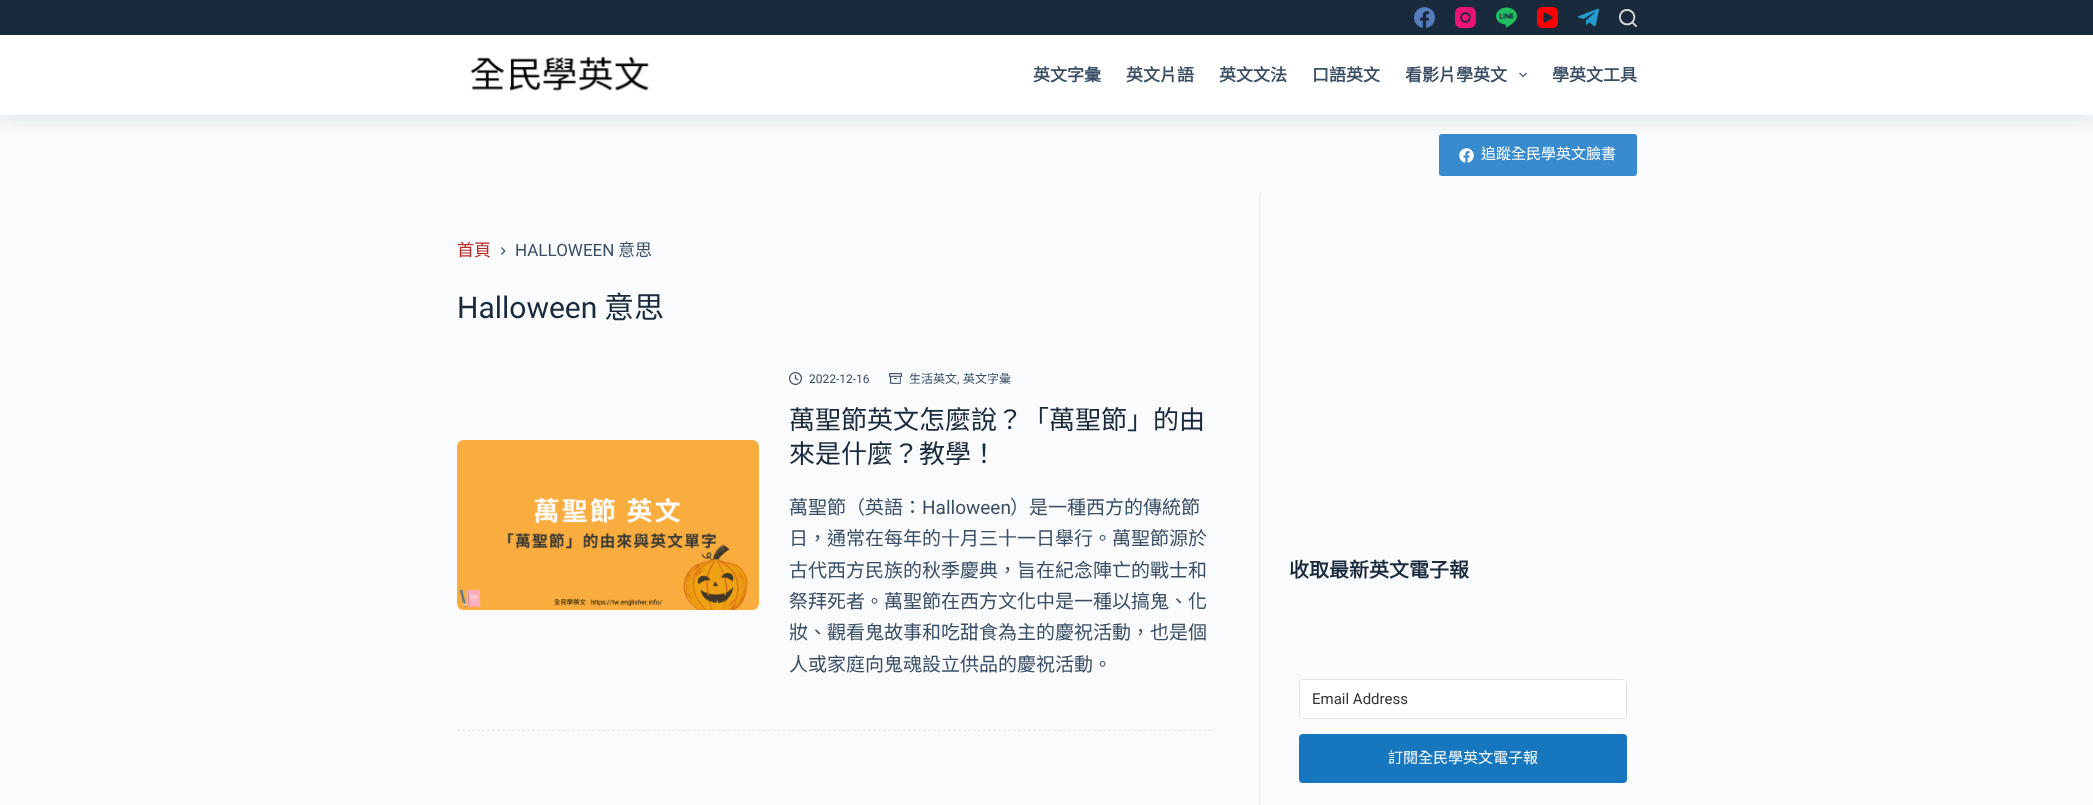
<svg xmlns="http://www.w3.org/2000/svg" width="2093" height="805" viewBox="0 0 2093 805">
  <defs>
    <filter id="blur1" x="-50%" y="-200%" width="200%" height="500%"><feGaussianBlur stdDeviation="10"/></filter>
  </defs>
  <rect width="100%" height="100%" fill="#fafbfc"/>
  <rect x="1439" y="134" width="198" height="42" rx="3" fill="#388bcf"/>
  <image x="1459" y="148" width="15" height="15" href="img9.png"/>
  <rect x="0" y="38" width="2093" height="80" fill="#2c3e50" fill-opacity="0.15" filter="url(#blur1)"/>
  <rect x="0" y="0" width="2093" height="35" fill="#192a3d"/>
  <image x="1414" y="7" width="21" height="21" href="img1.png"/>
  <image x="1455" y="7" width="21" height="21" href="img2.png"/>
  <image x="1496" y="7" width="21" height="21" href="img3.png"/>
  <image x="1537" y="7" width="21" height="21" href="img4.png"/>
  <image x="1578" y="8" width="21" height="19" href="img5.png"/>
  <image x="1619" y="9" width="18" height="18" href="img6.png"/>
  <rect x="0" y="35" width="2093" height="80" fill="#ffffff"/>
  <image x="470" y="56" width="179" height="35" href="img7.png"/>
  <text x="1033" y="81" font-family="Noto Sans CJK TC" font-size="17" font-weight="bold" fill="#3a4f66">英文字彙</text>
  <text x="1126" y="81" font-family="Noto Sans CJK TC" font-size="17" font-weight="bold" fill="#3a4f66">英文片語</text>
  <text x="1219" y="81" font-family="Noto Sans CJK TC" font-size="17" font-weight="bold" fill="#3a4f66">英文文法</text>
  <text x="1312" y="81" font-family="Noto Sans CJK TC" font-size="17" font-weight="bold" fill="#3a4f66">口語英文</text>
  <text x="1405" y="81" font-family="Noto Sans CJK TC" font-size="17" font-weight="bold" fill="#3a4f66">看影片學英文</text>
  <image x="1519" y="72" width="8" height="6" href="img8.png"/>
  <text x="1552" y="81" font-family="Noto Sans CJK TC" font-size="17" font-weight="bold" fill="#3a4f66">學英文工具</text>
  <text x="1481" y="159" font-family="Noto Sans CJK TC" font-size="15" fill="#ffffff">追蹤全民學英文臉書</text>
  <text x="457" y="256" font-family="Noto Sans CJK TC" font-size="17" fill="#b92b27">首頁</text>
  <image x="501" y="247" width="5" height="8" href="img10.png"/>
  <text x="515" y="256" font-family="Roboto" font-size="17" fill="#3a4f66">HALLOWEEN</text>
  <text x="618" y="256" font-family="Noto Sans CJK TC" font-size="17" fill="#3a4f66">意思</text>
  <text x="457" y="318" font-family="Roboto" font-size="30" fill="#192a3d">Halloween</text>
  <text x="604" y="318" font-family="Noto Sans CJK TC" font-size="30" fill="#192a3d">意思</text>
  <path d="M457 730.5H1212" fill="none" stroke="#e5e9ee" stroke-dasharray="3 2.01"/>
  <image x="457" y="440" width="302" height="170" href="img11.png"/>
  <image x="789" y="372" width="13" height="13" href="img12.png"/>
  <text x="809" y="383" font-family="Roboto" font-size="12" fill="#3a4f66">2022-12-16</text>
  <image x="889" y="373" width="13" height="11" href="img13.png"/>
  <text x="909" y="383" font-family="Noto Sans CJK TC" font-size="12" fill="#3a4f66">生活英文</text>
  <text x="957" y="383" font-family="Roboto" font-size="12" fill="#3a4f66">,</text>
  <text x="963" y="383" font-family="Noto Sans CJK TC" font-size="12" fill="#3a4f66">英文字彙</text>
  <text x="789" y="429" font-family="Noto Sans CJK TC" font-size="26" fill="#192a3d">萬聖節英文怎麼說？「萬聖節」的由</text>
  <text x="789" y="463" font-family="Noto Sans CJK TC" font-size="26" fill="#192a3d">來是什麼？教學！</text>
  <text x="789" y="514" font-family="Noto Sans CJK TC" font-size="19" fill="#3a4f66">萬聖節（英語：</text>
  <text x="922" y="514" font-family="Roboto" font-size="19" fill="#3a4f66">Halloween</text>
  <text x="1010" y="514" font-family="Noto Sans CJK TC" font-size="19" fill="#3a4f66">）是一種西方的傳統節</text>
  <text x="789" y="545" font-family="Noto Sans CJK TC" font-size="19" fill="#3a4f66">日，通常在每年的十月三十一日舉行。萬聖節源於</text>
  <text x="789" y="577" font-family="Noto Sans CJK TC" font-size="19" fill="#3a4f66">古代西方民族的秋季慶典，旨在紀念陣亡的戰士和</text>
  <text x="789" y="608" font-family="Noto Sans CJK TC" font-size="19" fill="#3a4f66">祭拜死者。萬聖節在西方文化中是一種以搞鬼、化</text>
  <text x="789" y="639" font-family="Noto Sans CJK TC" font-size="19" fill="#3a4f66">妝、觀看鬼故事和吃甜食為主的慶祝活動，也是個</text>
  <text x="789" y="671" font-family="Noto Sans CJK TC" font-size="19" fill="#3a4f66">人或家庭向鬼魂設立供品的慶祝活動。</text>
  <rect x="1259" y="195" width="1" height="610" fill="#e5e9ee"/>
  <text x="1289" y="577" font-family="Noto Sans CJK TC" font-size="20" font-weight="bold" fill="#192a3d">收取最新英文電子報</text>
  <rect x="1299.5" y="679.5" width="327" height="39" rx="3.5" fill="#ffffff" stroke="#e3e3e3"/>
  <text x="1312" y="704" font-family="Roboto" font-size="15" fill="#333333">Email Address</text>
  <rect x="1299" y="734" width="328" height="49" rx="4" fill="#1677be"/>
  <text x="1388" y="763" font-family="Noto Sans CJK TC" font-size="15" fill="#ffffff">訂閱全民學英文電子報</text>
</svg>
